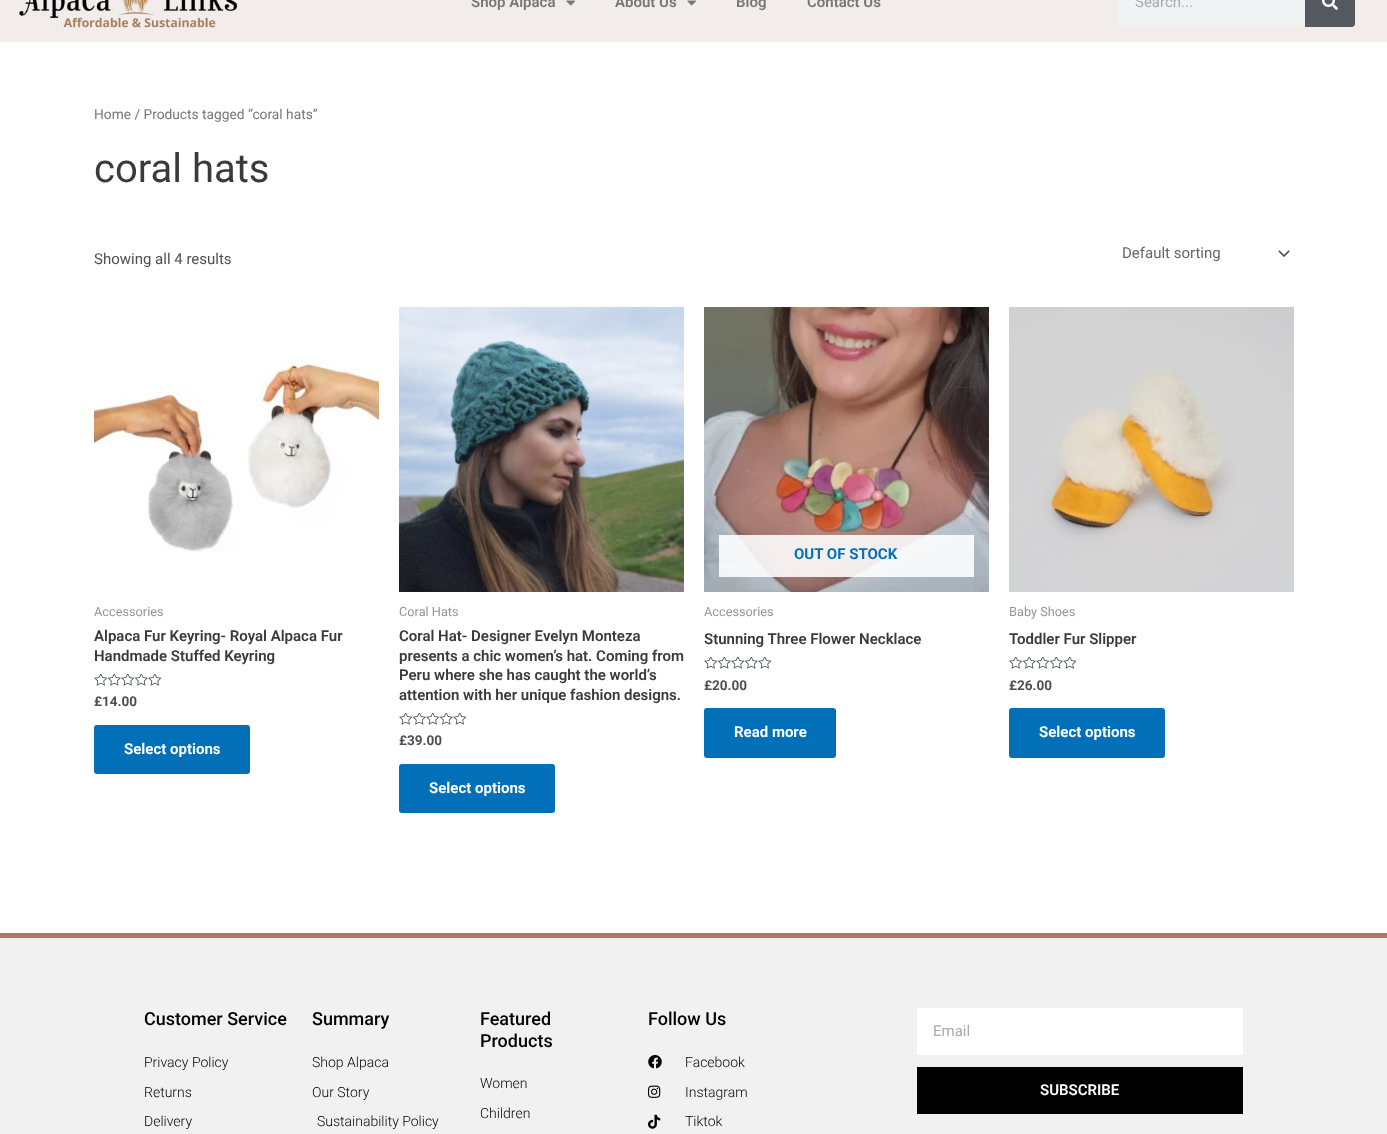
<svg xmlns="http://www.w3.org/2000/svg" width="1387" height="1134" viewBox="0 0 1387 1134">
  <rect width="100%" height="100%" fill="#ffffff"/>
  <rect x="0" y="0" width="1387" height="42" fill="#f2ecea"/>
  <image x="19" y="0" width="219" height="28" href="img1.png"/>
  <text x="471" y="7" font-family="Roboto" font-size="15" font-weight="600" fill="#777777">Shop Alpaca</text>
  <image x="566" y="0" width="9" height="6" href="img2.png"/>
  <text x="615" y="7" font-family="Roboto" font-size="15" font-weight="600" fill="#777777">About Us</text>
  <image x="687" y="0" width="9" height="6" href="img2.png"/>
  <text x="736" y="7" font-family="Roboto" font-size="15" font-weight="600" fill="#777777">Blog</text>
  <text x="807" y="7" font-family="Roboto" font-size="15" font-weight="600" fill="#777777">Contact Us</text>
  <rect x="1118" y="-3" width="237" height="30" rx="3" fill="#f1f2f3"/>
  <text x="1135" y="7" font-family="Roboto" font-size="15" fill="#aaaaaa">Search...</text>
  <path d="M1305-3H1352C1353.5-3 1355-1.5 1355 0V24C1355 25.5 1353.5 27 1352 27H1305Z" fill="#54595f"/>
  <image x="1322" y="0" width="16" height="10" href="img3.png"/>
  <text x="94" y="119" font-family="Roboto" font-size="13.75" fill="#777777">Home / Products tagged “coral hats”</text>
  <text x="94" y="182" font-family="Roboto" font-size="40" fill="#3a3a3a">coral hats</text>
  <text x="94" y="264" font-family="Roboto" font-size="15" fill="#4b4f58">Showing all 4 results</text>
  <image x="1278" y="250" width="12" height="7" href="img4.png"/>
  <text x="1122" y="258" font-family="Roboto" font-size="15" fill="#666666">Default sorting</text>
  <image x="94" y="357" width="285" height="195" href="img5.png"/>
  <text x="94" y="616" font-family="Roboto" font-size="12.75" fill="#93959b">Accessories</text>
  <text x="94" y="641" font-family="Roboto" font-size="15" font-weight="600" fill="#3a3a3a">Alpaca Fur Keyring- Royal Alpaca Fur</text>
  <text x="94" y="661" font-family="Roboto" font-size="15" font-weight="600" fill="#3a3a3a">Handmade Stuffed Keyring</text>
  <image x="94" y="674" width="68" height="12" href="img6.png"/>
  <text x="94" y="706" font-family="Roboto" font-size="13.5" font-weight="bold" fill="#4b4f58">£14.00</text>
  <rect x="94" y="725" width="156" height="49" rx="3" fill="#0170b9"/>
  <text x="124" y="754" font-family="Roboto" font-size="15" font-weight="bold" fill="#ffffff">Select options</text>
  <image x="399" y="307" width="285" height="285" href="img7.png"/>
  <text x="399" y="616" font-family="Roboto" font-size="12.75" fill="#93959b">Coral Hats</text>
  <text x="399" y="641" font-family="Roboto" font-size="15" font-weight="600" fill="#3a3a3a">Coral Hat- Designer Evelyn Monteza</text>
  <text x="399" y="661" font-family="Roboto" font-size="15" font-weight="600" fill="#3a3a3a">presents a chic women’s hat. Coming from</text>
  <text x="399" y="680" font-family="Roboto" font-size="15" font-weight="600" fill="#3a3a3a">Peru where she has caught the world’s</text>
  <text x="399" y="700" font-family="Roboto" font-size="15" font-weight="600" fill="#3a3a3a">attention with her unique fashion designs.</text>
  <image x="399" y="713" width="68" height="12" href="img6.png"/>
  <text x="399" y="745" font-family="Roboto" font-size="13.5" font-weight="bold" fill="#4b4f58">£39.00</text>
  <rect x="399" y="764" width="156" height="49" rx="3" fill="#0170b9"/>
  <text x="429" y="793" font-family="Roboto" font-size="15" font-weight="bold" fill="#ffffff">Select options</text>
  <image x="704" y="307" width="285" height="285" href="img8.png"/>
  <rect x="719" y="535" width="255" height="42" fill="#ffffff" fill-opacity="0.88"/>
  <text x="794" y="559" font-family="Roboto" font-size="15" font-weight="bold" fill="#0170b9">OUT OF STOCK</text>
  <text x="704" y="616" font-family="Roboto" font-size="12.75" fill="#93959b">Accessories</text>
  <text x="704" y="644" font-family="Roboto" font-size="15" font-weight="600" fill="#3a3a3a">Stunning Three Flower Necklace</text>
  <image x="704" y="657" width="68" height="12" href="img6.png"/>
  <text x="704" y="690" font-family="Roboto" font-size="13.5" font-weight="bold" fill="#4b4f58">£20.00</text>
  <rect x="704" y="708" width="132" height="50" rx="3" fill="#0170b9"/>
  <text x="734" y="737" font-family="Roboto" font-size="15" font-weight="bold" fill="#ffffff">Read more</text>
  <image x="1009" y="307" width="285" height="285" href="img9.png"/>
  <text x="1009" y="616" font-family="Roboto" font-size="12.75" fill="#93959b">Baby Shoes</text>
  <text x="1009" y="644" font-family="Roboto" font-size="15" font-weight="600" fill="#3a3a3a">Toddler Fur Slipper</text>
  <image x="1009" y="657" width="68" height="12" href="img6.png"/>
  <text x="1009" y="690" font-family="Roboto" font-size="13.5" font-weight="bold" fill="#4b4f58">£26.00</text>
  <rect x="1009" y="708" width="156" height="50" rx="3" fill="#0170b9"/>
  <text x="1039" y="737" font-family="Roboto" font-size="15" font-weight="bold" fill="#ffffff">Select options</text>
  <rect x="0" y="938" width="1387" height="196" fill="#f1f1f1"/>
  <rect x="0" y="933" width="1387" height="5" fill="#a57a69"/>
  <text x="144" y="1025" font-family="Roboto" font-size="18" font-weight="500" fill="#000000">Customer Service</text>
  <text x="144" y="1067" font-family="Roboto" font-size="14" font-weight="300" fill="#000000">Privacy Policy</text>
  <text x="144" y="1097" font-family="Roboto" font-size="14" font-weight="300" fill="#000000">Returns</text>
  <text x="144" y="1126" font-family="Roboto" font-size="14" font-weight="300" fill="#000000">Delivery</text>
  <text x="312" y="1025" font-family="Roboto" font-size="18" font-weight="500" fill="#000000">Summary</text>
  <text x="312" y="1067" font-family="Roboto" font-size="14" font-weight="300" fill="#000000">Shop Alpaca</text>
  <text x="312" y="1097" font-family="Roboto" font-size="14" font-weight="300" fill="#000000">Our Story</text>
  <text x="317" y="1126" font-family="Roboto" font-size="14" font-weight="300" fill="#000000">Sustainability Policy</text>
  <text x="480" y="1025" font-family="Roboto" font-size="18" font-weight="500" fill="#000000">Featured</text>
  <text x="480" y="1047" font-family="Roboto" font-size="18" font-weight="500" fill="#000000">Products</text>
  <text x="480" y="1088" font-family="Roboto" font-size="14" font-weight="300" fill="#000000">Women</text>
  <text x="480" y="1118" font-family="Roboto" font-size="14" font-weight="300" fill="#000000">Children</text>
  <text x="648" y="1025" font-family="Roboto" font-size="18" font-weight="500" fill="#000000">Follow Us</text>
  <image x="648" y="1055" width="14" height="14" href="img10.png"/>
  <text x="685" y="1067" font-family="Roboto" font-size="14" font-weight="300" fill="#000000">Facebook</text>
  <image x="648" y="1085" width="13" height="13" href="img11.png"/>
  <text x="685" y="1097" font-family="Roboto" font-size="14" font-weight="300" fill="#000000">Instagram</text>
  <image x="648" y="1114" width="13" height="15" href="img12.png"/>
  <text x="685" y="1126" font-family="Roboto" font-size="14" font-weight="300" fill="#000000">Tiktok</text>
  <rect x="917" y="1008" width="326" height="47" fill="#ffffff"/>
  <text x="933" y="1036" font-family="Roboto" font-size="15" fill="#aaaaaa">Email</text>
  <rect x="917" y="1067" width="326" height="47" fill="#000000"/>
  <text x="1040" y="1095" font-family="Roboto" font-size="15" font-weight="600" fill="#ffffff">SUBSCRIBE</text>
</svg>
